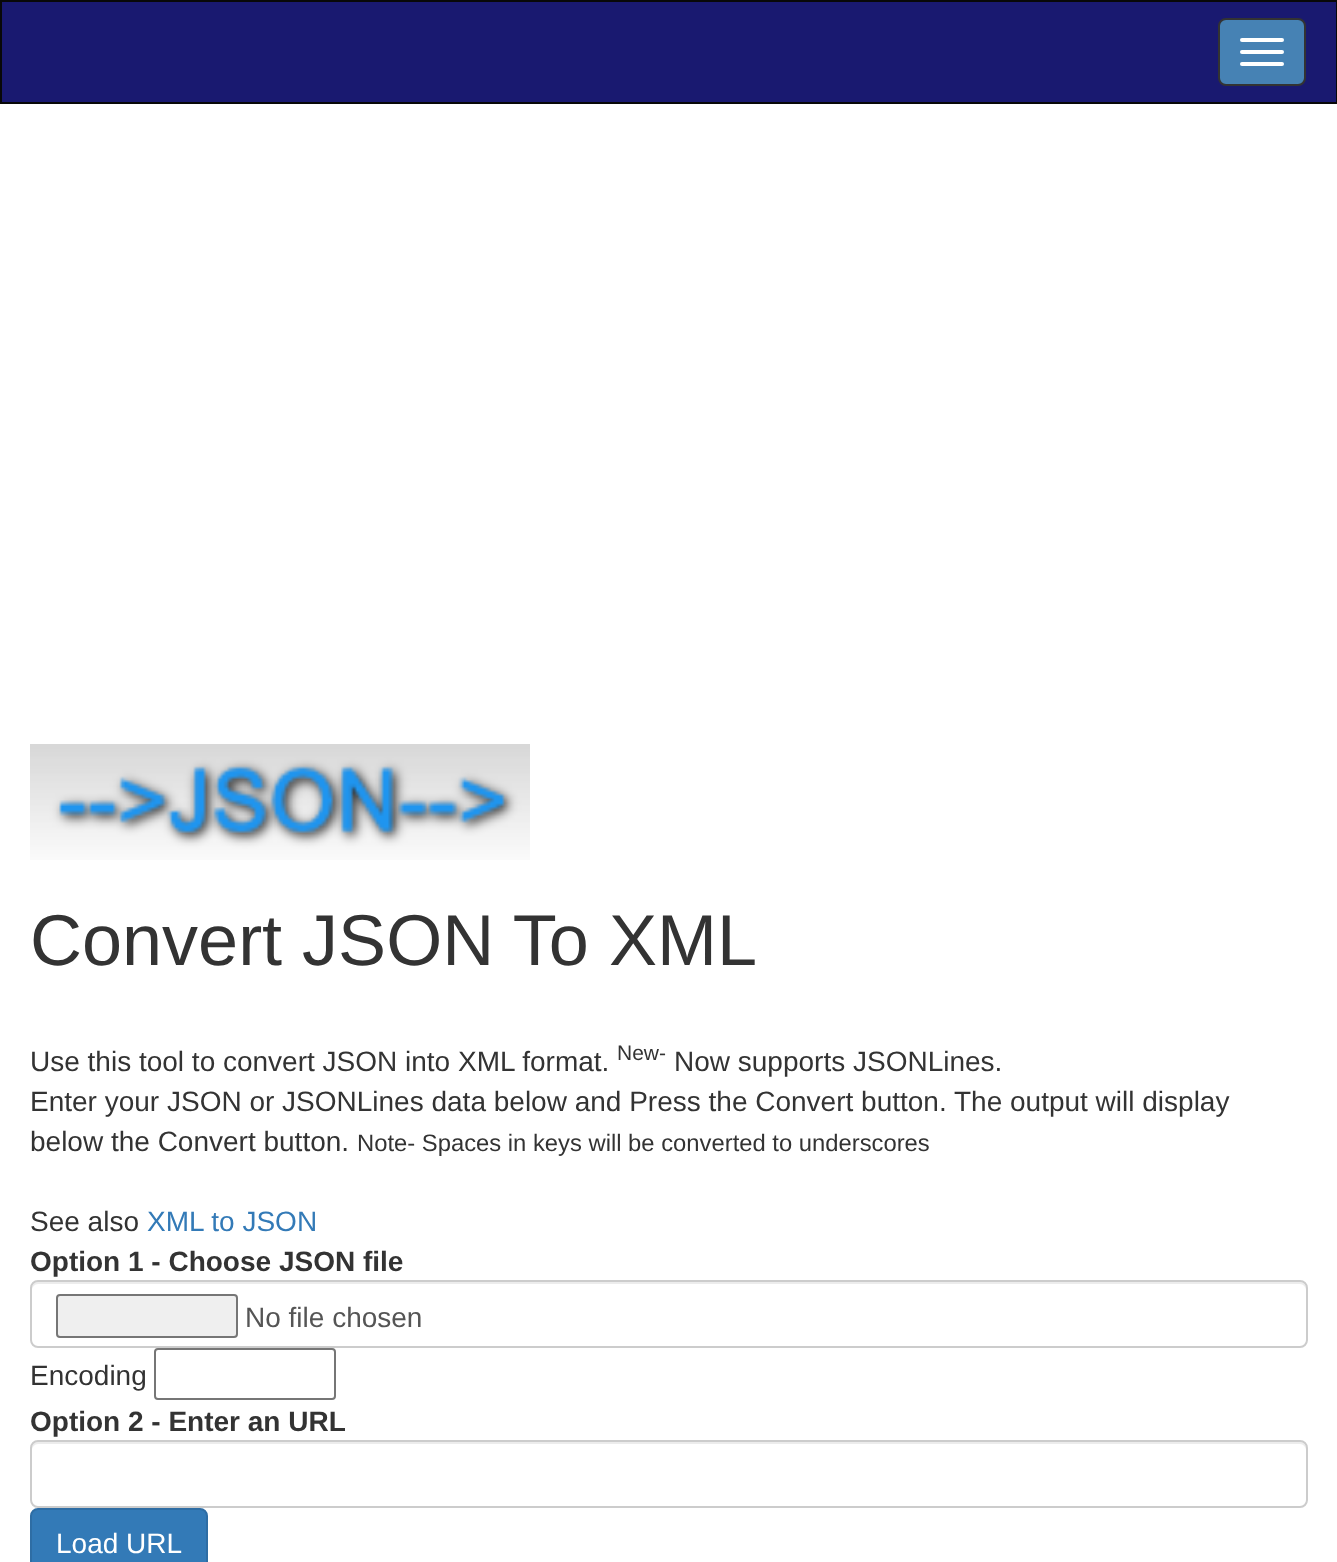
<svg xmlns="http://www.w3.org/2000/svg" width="1337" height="1562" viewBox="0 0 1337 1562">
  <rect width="100%" height="100%" fill="#ffffff"/>
  <rect x="1" y="1" width="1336" height="102" fill="#191970" stroke="#080808" stroke-width="2"/>
  <rect x="1219" y="19" width="86" height="66" rx="7" fill="#4682b4" stroke="#333333" stroke-width="2"/>
  <rect x="1240" y="38" width="44" height="4" rx="2" fill="#ffffff"/>
  <rect x="1240" y="50" width="44" height="4" rx="2" fill="#ffffff"/>
  <rect x="1240" y="62" width="44" height="4" rx="2" fill="#ffffff"/>
  <image x="30" y="744" width="500" height="116" href="img1.png"/>
  <text x="30" y="965" font-family="Liberation Sans" font-size="72" fill="#333333">Convert JSON To XML</text>
  <text x="30" y="1071" font-family="Liberation Sans" font-size="28" fill="#333333">Use this tool to convert JSON into XML format.</text>
  <text x="617" y="1060" font-family="Liberation Sans" font-size="21" fill="#333333">New-</text>
  <text x="674" y="1071" font-family="Liberation Sans" font-size="28" fill="#333333">Now supports JSONLines.</text>
  <text x="30" y="1111" font-family="Liberation Sans" font-size="28" fill="#333333">Enter your JSON or JSONLines data below and Press the Convert button. The output will display</text>
  <text x="30" y="1151" font-family="Liberation Sans" font-size="28" fill="#333333">below the Convert button.</text>
  <text x="357" y="1151" font-family="Liberation Sans" font-size="23.8" fill="#333333">Note- Spaces in keys will be converted to underscores</text>
  <text x="30" y="1231" font-family="Liberation Sans" font-size="28" fill="#333333">See also</text>
  <text x="147" y="1231" font-family="Liberation Sans" font-size="28" fill="#337ab7">XML to JSON</text>
  <text x="30" y="1271" font-family="Liberation Sans" font-size="28" font-weight="bold" fill="#333333">Option 1 - Choose JSON file</text>
  <path d="M38 1284H1300C1303 1284 1306 1287 1306 1290V1288C1306 1285 1303 1282 1300 1282H38C35 1282 32 1285 32 1288V1290C32 1287 35 1284 38 1284Z" fill="#ececec"/>
  <rect x="31" y="1281" width="1276" height="66" rx="7" fill="none" stroke="#cccccc" stroke-width="2"/>
  <rect x="57" y="1295" width="180" height="42" rx="3" fill="#efefef" stroke="#767676" stroke-width="2"/>
  <text x="245" y="1327" font-family="Liberation Sans" font-size="28" fill="#555555">No file chosen</text>
  <text x="30" y="1385" font-family="Liberation Sans" font-size="28" fill="#333333">Encoding</text>
  <rect x="155" y="1349" width="180" height="50" rx="3" fill="none" stroke="#767676" stroke-width="2"/>
  <text x="30" y="1431" font-family="Liberation Sans" font-size="28" font-weight="bold" fill="#333333">Option 2 - Enter an URL</text>
  <path d="M38 1444H1300C1303 1444 1306 1447 1306 1450V1448C1306 1445 1303 1442 1300 1442H38C35 1442 32 1445 32 1448V1450C32 1447 35 1444 38 1444Z" fill="#ececec"/>
  <rect x="31" y="1441" width="1276" height="66" rx="7" fill="none" stroke="#cccccc" stroke-width="2"/>
  <rect x="31" y="1509" width="176" height="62" rx="7" fill="#337ab7" stroke="#2e6da4" stroke-width="2"/>
  <text x="56" y="1553" font-family="Liberation Sans" font-size="28" fill="#ffffff">Load URL</text>
</svg>
